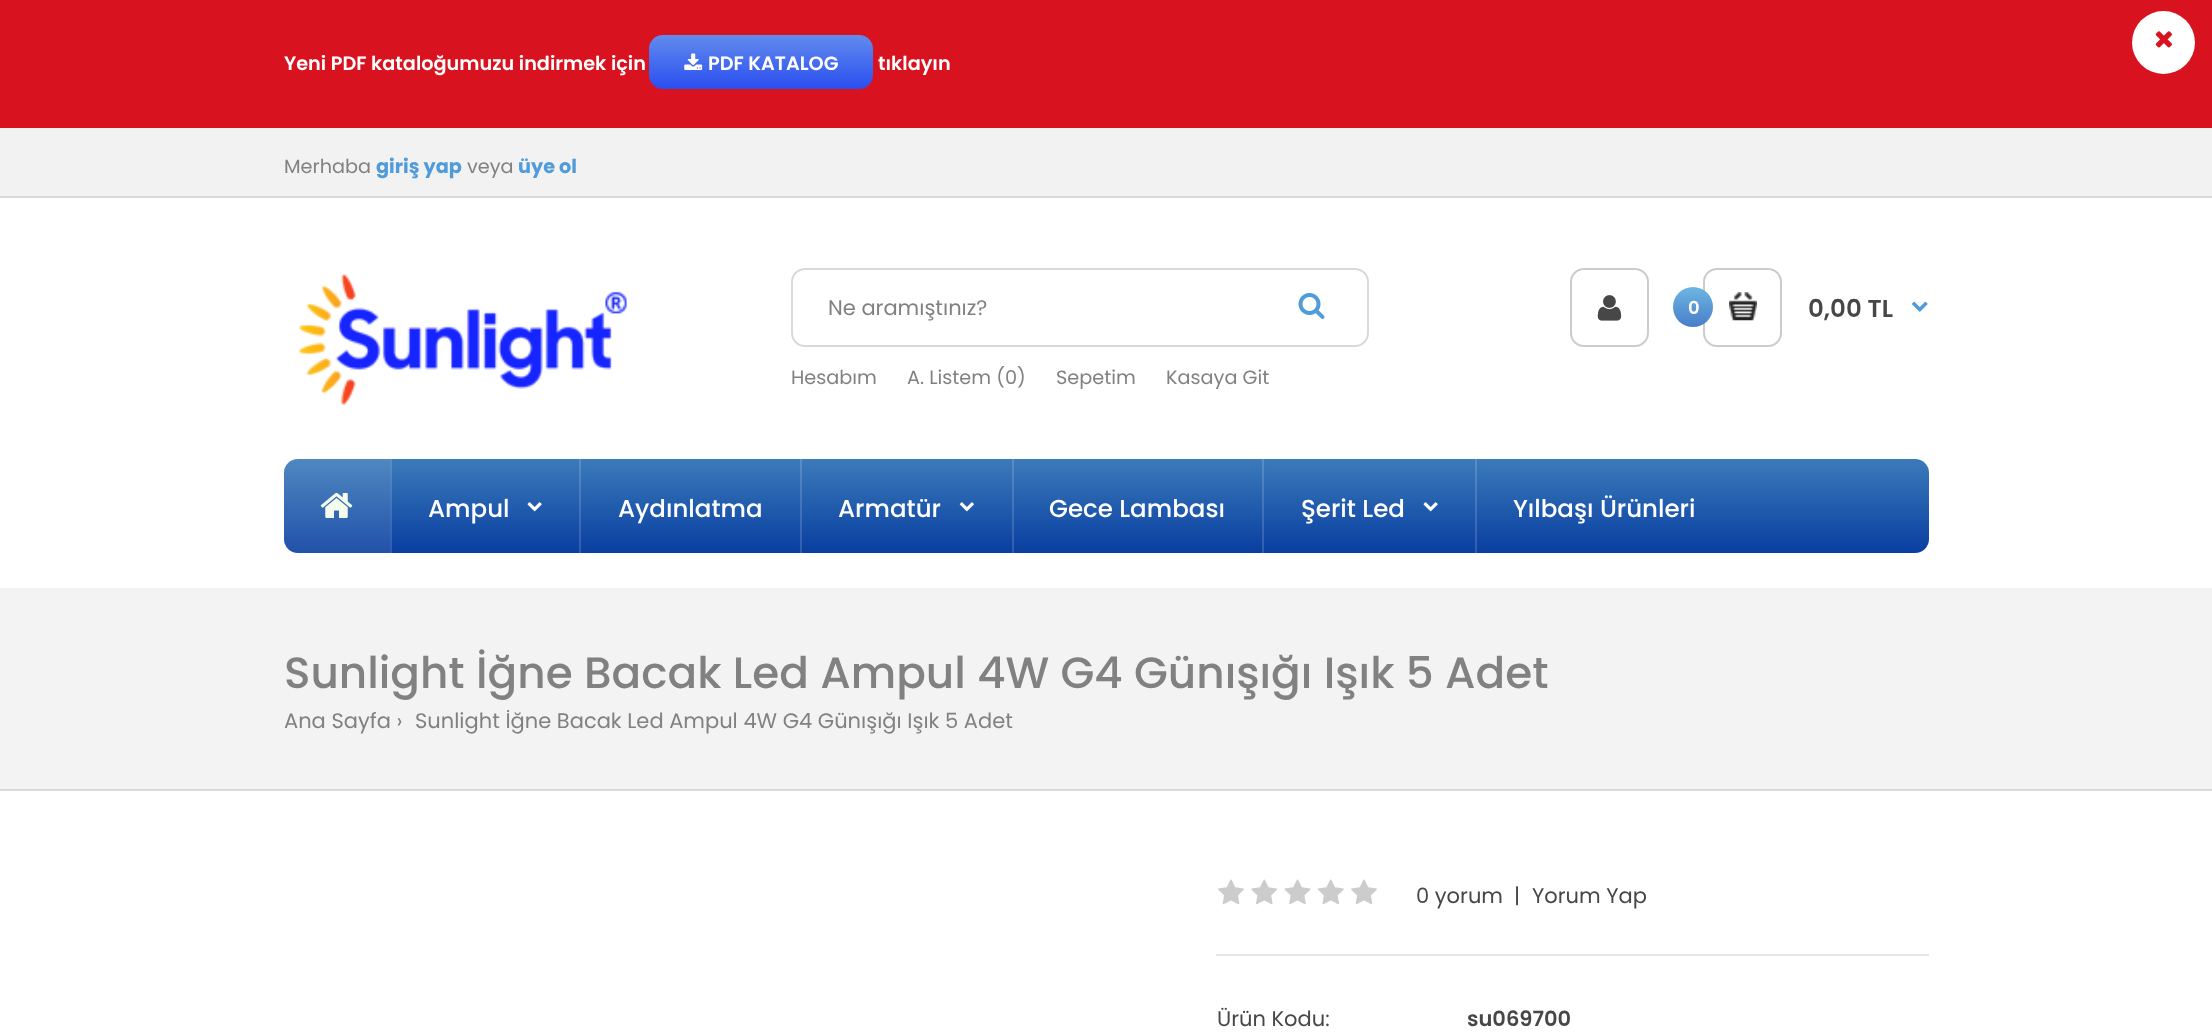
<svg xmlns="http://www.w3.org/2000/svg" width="2212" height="1033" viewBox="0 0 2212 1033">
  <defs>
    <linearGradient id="g1" gradientUnits="userSpaceOnUse" x1="761" y1="35" x2="761" y2="89"><stop offset="0" stop-color="#2b4ff0"/><stop offset="0" stop-color="#628bed"/><stop offset="0.99" stop-color="#2b4ff0"/></linearGradient>
    <linearGradient id="g2" gradientUnits="userSpaceOnUse" x1="1693" y1="287" x2="1693" y2="327"><stop offset="0" stop-color="#497ec9"/><stop offset="0" stop-color="#6db6e3"/><stop offset="0.99" stop-color="#497ec9"/></linearGradient>
    <linearGradient id="g3" gradientUnits="userSpaceOnUse" x1="1106" y1="458" x2="1106" y2="553"><stop offset="0" stop-color="#093fa1"/><stop offset="0" stop-color="#3c7bba"/><stop offset="0.99" stop-color="#093fa1"/></linearGradient>
    <linearGradient id="g4" gradientUnits="userSpaceOnUse" x1="1106" y1="458" x2="1106" y2="553"><stop offset="0" stop-color="#2e5caf"/><stop offset="0" stop-color="#598fc4"/><stop offset="0.99" stop-color="#2e5caf"/></linearGradient>
  </defs>
  <rect width="100%" height="100%" fill="#ffffff"/>
  <rect x="0" y="0" width="2212" height="128" fill="#d9121f"/>
  <text x="284" y="70" font-family="Poppins" font-size="19.25" font-weight="600" fill="#ffffff">Yeni PDF kataloğumuzu indirmek için</text>
  <rect x="649" y="35" width="224" height="54" rx="14" fill="url(#g1)"/>
  <image x="684" y="53" width="19" height="17" href="img1.png"/>
  <text x="708" y="70" font-family="Poppins" font-size="19.25" font-weight="600" fill="#ffffff">PDF KATALOG</text>
  <text x="878" y="70" font-family="Poppins" font-size="19.25" font-weight="600" fill="#ffffff">tıklayın</text>
  <circle cx="2163.5" cy="42.5" r="31.5" fill="#ffffff"/>
  <image x="2155" y="31" width="17" height="17" href="img2.png"/>
  <rect x="0" y="128" width="2212" height="68" fill="#f2f2f2"/>
  <rect x="0" y="196" width="2212" height="2" fill="#d9d9d9"/>
  <text x="284" y="173" font-family="Poppins" font-size="19.25" fill="#818181">Merhaba</text>
  <text x="376" y="173" font-family="Poppins" font-size="19.25" font-weight="bold" fill="#509bd9">giriş yap</text>
  <text x="467" y="173" font-family="Poppins" font-size="19.25" fill="#818181">veya</text>
  <text x="518" y="173" font-family="Poppins" font-size="19.25" font-weight="bold" fill="#509bd9">üye ol</text>
  <image x="298" y="274" width="329" height="131" href="img3.png"/>
  <rect x="792" y="269" width="576" height="77" rx="13" fill="none" stroke="#d9d9d9" stroke-width="2"/>
  <text x="828" y="315" font-family="Poppins" font-size="21" fill="#818181">Ne aramıştınız?</text>
  <image x="1298" y="293" width="27" height="26" href="img4.png"/>
  <text x="791" y="384" font-family="Poppins" font-size="19.25" fill="#818181">Hesabım</text>
  <text x="907" y="384" font-family="Poppins" font-size="19.25" fill="#818181">A. Listem (0)</text>
  <text x="1056" y="384" font-family="Poppins" font-size="19.25" fill="#818181">Sepetim</text>
  <text x="1166" y="384" font-family="Poppins" font-size="19.25" fill="#818181">Kasaya Git</text>
  <rect x="1571" y="269" width="77" height="77" rx="13" fill="none" stroke="#cccccc" stroke-width="2"/>
  <image x="1597" y="295" width="25" height="26" href="img5.png"/>
  <rect x="1704" y="269" width="77" height="77" rx="13" fill="none" stroke="#cccccc" stroke-width="2"/>
  <circle cx="1693" cy="307" r="20" fill="url(#g2)"/>
  <text x="1688" y="314" font-family="Poppins" font-size="18" font-weight="600" fill="#ffffff">0</text>
  <image x="1729" y="292" width="28" height="29" href="img6.png"/>
  <text x="1808" y="317" font-family="Poppins" font-size="24.5" font-weight="600" fill="#474747">0,00 TL</text>
  <image x="1911" y="301" width="17" height="11" href="img7.png"/>
  <rect x="284" y="459" width="1645" height="94" rx="14" fill="url(#g3)"/>
  <rect x="1475" y="459" width="2" height="94" fill="url(#g4)"/>
  <rect x="1262" y="459" width="2" height="94" fill="url(#g4)"/>
  <rect x="1012" y="459" width="2" height="94" fill="url(#g4)"/>
  <rect x="800" y="459" width="2" height="94" fill="url(#g4)"/>
  <rect x="579" y="459" width="2" height="94" fill="url(#g4)"/>
  <rect x="390" y="459" width="2" height="94" fill="url(#g4)"/>
  <path d="M298 459H390V553H298C290.5 553 284 546.5 284 539V473C284 465.5 290.5 459 298 459Z" fill="#ffffff" fill-opacity="0.1"/>
  <image x="320" y="492" width="33" height="26" href="img8.png"/>
  <text x="428" y="517" font-family="Poppins" font-size="24.5" font-weight="500" fill="#ffffff">Ampul</text>
  <image x="527" y="502" width="15" height="10" href="img9.png"/>
  <text x="618" y="517" font-family="Poppins" font-size="24.5" font-weight="500" fill="#ffffff">Aydınlatma</text>
  <text x="838" y="517" font-family="Poppins" font-size="24.5" font-weight="500" fill="#ffffff">Armatür</text>
  <image x="959" y="502" width="15" height="10" href="img10.png"/>
  <text x="1049" y="517" font-family="Poppins" font-size="24.5" font-weight="500" fill="#ffffff">Gece Lambası</text>
  <text x="1301" y="517" font-family="Poppins" font-size="24.5" font-weight="500" fill="#ffffff">Şerit Led</text>
  <image x="1423" y="502" width="15" height="10" href="img9.png"/>
  <text x="1513" y="517" font-family="Poppins" font-size="24.5" font-weight="500" fill="#ffffff">Yılbaşı Ürünleri</text>
  <rect x="0" y="588" width="2212" height="201" fill="#f3f3f3"/>
  <rect x="0" y="789" width="2212" height="2" fill="#d9d9d9"/>
  <text x="284" y="688" font-family="Poppins" font-size="43.75" font-weight="500" fill="#818181">Sunlight İğne Bacak Led Ampul 4W G4 Günışığı Işık 5 Adet</text>
  <text x="284" y="728" font-family="Poppins" font-size="21" fill="#818181">Ana Sayfa ›</text>
  <text x="415" y="728" font-family="Poppins" font-size="21" fill="#818181">Sunlight İğne Bacak Led Ampul 4W G4 Günışığı Işık 5 Adet</text>
  <rect x="1216" y="954" width="713" height="2" fill="#e5e5e5"/>
  <image x="1218" y="879" width="26" height="26" href="img11.png"/>
  <image x="1251" y="879" width="27" height="26" href="img12.png"/>
  <image x="1284" y="879" width="27" height="26" href="img13.png"/>
  <image x="1317" y="879" width="27" height="26" href="img14.png"/>
  <image x="1351" y="879" width="26" height="26" href="img11.png"/>
  <text x="1416" y="903" font-family="Poppins" font-size="21" fill="#474747">0 yorum</text>
  <text x="1514" y="903" font-family="Poppins" font-size="21" fill="#474747">|</text>
  <text x="1532" y="903" font-family="Poppins" font-size="21" fill="#474747">Yorum Yap</text>
  <text x="1217" y="1026" font-family="Poppins" font-size="21" fill="#474747">Ürün Kodu:</text>
  <text x="1467" y="1026" font-family="Poppins" font-size="21" font-weight="600" fill="#474747">su069700</text>
</svg>
